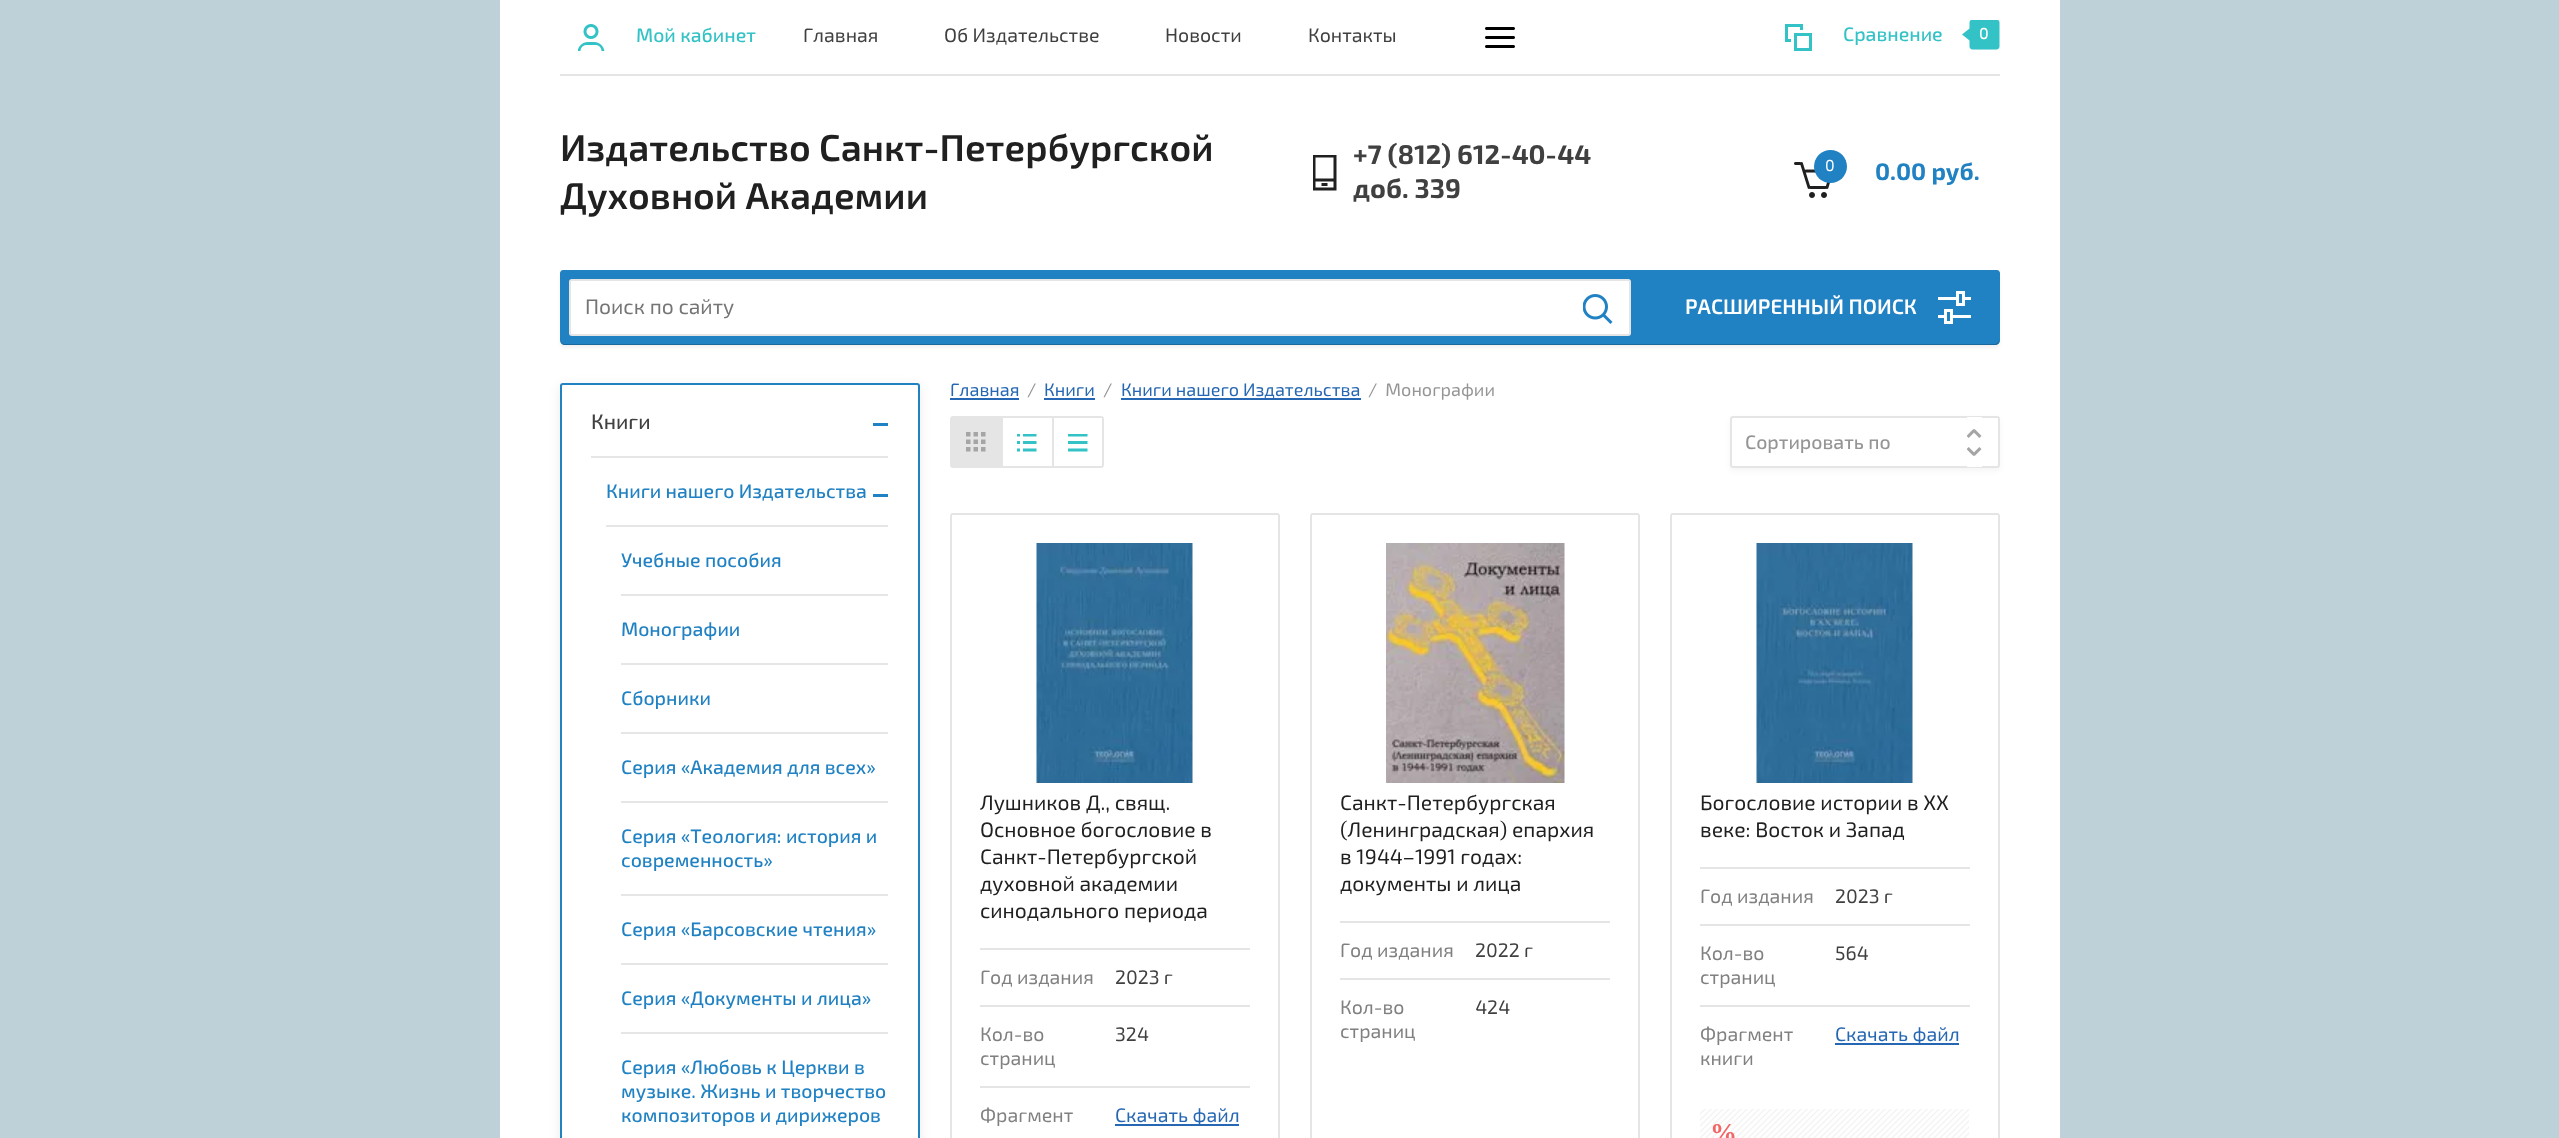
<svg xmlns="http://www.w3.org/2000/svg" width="2559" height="1138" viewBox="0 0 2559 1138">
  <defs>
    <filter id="blur1" x="-50%" y="-200%" width="200%" height="500%"><feGaussianBlur stdDeviation="1.5"/></filter>
    <filter id="blur2" x="-50%" y="-200%" width="200%" height="500%"><feGaussianBlur stdDeviation="6"/></filter>
    <filter id="blur3" x="-50%" y="-200%" width="200%" height="500%"><feGaussianBlur stdDeviation="3"/></filter>
  </defs>
  <rect width="100%" height="100%" fill="#bed1d8"/>
  <rect x="500" y="0" width="1560" height="1138" fill="#ffffff"/>
  <rect x="560" y="74" width="1440" height="2" fill="#e5e5e5"/>
  <image x="578" y="24" width="27" height="27" href="img1.png"/>
  <text x="636" y="42" font-family="'Exo 2'" font-size="19.5" font-weight="500" fill="#33c2c5">Мой кабинет</text>
  <text x="803" y="42" font-family="'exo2'" font-size="19.5" fill="#404040">Главная</text>
  <text x="944" y="42" font-family="'exo2'" font-size="19.5" fill="#404040">Об Издательстве</text>
  <text x="1165" y="42" font-family="'exo2'" font-size="19.5" fill="#404040">Новости</text>
  <text x="1308" y="42" font-family="'exo2'" font-size="19.5" fill="#404040">Контакты</text>
  <image x="1485" y="27" width="30" height="21" href="img2.png"/>
  <image x="1785" y="24" width="27" height="27" href="img3.png"/>
  <text x="1843" y="41" font-family="'Exo 2'" font-size="19.5" font-weight="500" fill="#33c2c5">Сравнение</text>
  <image x="1962" y="20" width="38" height="30" href="img4.png"/>
  <text x="1979" y="39" font-family="'Exo 2'" font-size="16" font-weight="500" fill="#ffffff">0</text>
  <text x="560" y="161" font-family="'Exo 2'" font-size="37.5" font-weight="600" fill="#202020">Издательство Санкт-Петербургской</text>
  <text x="560" y="209" font-family="'Exo 2'" font-size="37.5" font-weight="600" fill="#202020">Духовной Академии</text>
  <image x="1313" y="155" width="24" height="36" href="img5.png"/>
  <text x="1353" y="164" font-family="'exo2'" font-size="27" font-weight="bold" fill="#404040">+7 (812) 612-40-44</text>
  <text x="1353" y="198" font-family="'exo2'" font-size="27" font-weight="bold" fill="#404040">доб. 339</text>
  <image x="1794" y="162" width="36" height="36" href="img6.png"/>
  <circle cx="1830.5" cy="166.5" r="16.5" fill="#2081c3"/>
  <text x="1825" y="171" font-family="'exo2'" font-size="16" fill="#ffffff">0</text>
  <text x="1875" y="180" font-family="'exo2'" font-size="24" font-weight="bold" fill="#2081c3">0.00 руб.</text>
  <rect x="560" y="273" width="1440" height="75" rx="5" fill="#000000" fill-opacity="0.05" filter="url(#blur1)"/>
  <path d="M563 270H1997C1998.5 270 2000 271.5 2000 273V340C2000 343 1998 345 1995 345H565C562 345 560 343 560 340V273C560 271.5 561.5 270 563 270Z" fill="#2081c3"/>
  <path d="M560 339C560 342 562 345 565 345H1995C1998 345 2000 342 2000 339C2000 341 1997 344 1995 344H564C562 344 560 341 560 339Z" fill="#000000" fill-opacity="0.2"/>
  <rect x="569" y="279" width="1062" height="57" rx="3" fill="#ffffff"/>
  <rect x="570" y="280" width="1060" height="55" rx="2" fill="none" stroke="#000000" stroke-opacity="0.1" stroke-width="2"/>
  <text x="585" y="314" font-family="'exo2'" font-size="21" fill="#757575">Поиск по сайту</text>
  <image x="1583" y="294" width="30" height="30" href="img7.png"/>
  <text x="1685" y="314" font-family="'Exo 2'" font-size="21" font-weight="600" fill="#ffffff">РАСШИРЕННЫЙ ПОИСК</text>
  <image x="1938" y="291" width="33" height="33" href="img8.png"/>
  <rect x="560" y="386" width="360" height="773" rx="3" fill="#000000" fill-opacity="0.08" filter="url(#blur2)"/>
  <rect x="561" y="384" width="358" height="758" rx="2" fill="#ffffff" stroke="#2081c3" stroke-width="2"/>
  <rect x="591" y="456" width="297" height="2" fill="#e6e6e6"/>
  <text x="591" y="429" font-family="'Exo 2'" font-size="21" font-weight="500" fill="#404040">Книги</text>
  <rect x="873" y="423" width="15" height="3" fill="#2081c3"/>
  <rect x="606" y="525" width="282" height="2" fill="#e6e6e6"/>
  <text x="606" y="498" font-family="'Exo 2'" font-size="19.5" font-weight="500" fill="#2081c3">Книги нашего Издательства</text>
  <rect x="873" y="494" width="15" height="3" fill="#2081c3"/>
  <rect x="621" y="594" width="267" height="2" fill="#e6e6e6"/>
  <text x="621" y="567" font-family="'Exo 2'" font-size="19.5" font-weight="500" fill="#2081c3">Учебные пособия</text>
  <rect x="621" y="663" width="267" height="2" fill="#e6e6e6"/>
  <text x="621" y="636" font-family="'Exo 2'" font-size="19.5" font-weight="500" fill="#2081c3">Монографии</text>
  <rect x="621" y="732" width="267" height="2" fill="#e6e6e6"/>
  <text x="621" y="705" font-family="'Exo 2'" font-size="19.5" font-weight="500" fill="#2081c3">Сборники</text>
  <rect x="621" y="801" width="267" height="2" fill="#e6e6e6"/>
  <text x="621" y="774" font-family="'Exo 2'" font-size="19.5" font-weight="500" fill="#2081c3">Серия «Академия для всех»</text>
  <rect x="621" y="894" width="267" height="2" fill="#e6e6e6"/>
  <text x="621" y="843" font-family="'Exo 2'" font-size="19.5" font-weight="500" fill="#2081c3">Серия «Теология: история и</text>
  <text x="621" y="867" font-family="'Exo 2'" font-size="19.5" font-weight="500" fill="#2081c3">современность»</text>
  <rect x="621" y="963" width="267" height="2" fill="#e6e6e6"/>
  <text x="621" y="936" font-family="'Exo 2'" font-size="19.5" font-weight="500" fill="#2081c3">Серия «Барсовские чтения»</text>
  <rect x="621" y="1032" width="267" height="2" fill="#e6e6e6"/>
  <text x="621" y="1005" font-family="'Exo 2'" font-size="19.5" font-weight="500" fill="#2081c3">Серия «Документы и лица»</text>
  <text x="621" y="1074" font-family="'Exo 2'" font-size="19.5" font-weight="500" fill="#2081c3">Серия «Любовь к Церкви в</text>
  <text x="621" y="1098" font-family="'Exo 2'" font-size="19.5" font-weight="500" fill="#2081c3">музыке. Жизнь и творчество</text>
  <text x="621" y="1122" font-family="'Exo 2'" font-size="19.5" font-weight="500" fill="#2081c3">композиторов и дирижеров</text>
  <text x="950" y="396" font-family="'exo2'" font-size="18" fill="#2567b3">Главная</text>
  <rect x="950" y="398" width="69" height="2" fill="#2567b3"/>
  <text x="1027" y="396" font-family="'exo2'" font-size="18" fill="#959595">/</text>
  <text x="1044" y="396" font-family="'exo2'" font-size="18" fill="#2567b3">Книги</text>
  <rect x="1044" y="398" width="51" height="2" fill="#2567b3"/>
  <text x="1103" y="396" font-family="'exo2'" font-size="18" fill="#959595">/</text>
  <rect x="1121" y="398" width="240" height="2" fill="#2567b3"/>
  <text x="1121" y="396" font-family="'exo2'" font-size="18" fill="#2567b3">Книги нашего Издательства</text>
  <text x="1368" y="396" font-family="'exo2'" font-size="18" fill="#959595" xml:space="preserve">/  Монографии</text>
  <rect x="951" y="417" width="152" height="50" rx="2" fill="none" stroke="#000000" stroke-opacity="0.1" stroke-width="2"/>
  <rect x="952" y="418" width="49" height="48" fill="#e5e5e5"/>
  <rect x="1001" y="417" width="2" height="50" fill="#e5e5e5"/>
  <image x="966" y="432" width="20" height="20" href="img9.png"/>
  <image x="1017" y="434" width="20" height="18" href="img10.png"/>
  <rect x="1052" y="417" width="2" height="50" fill="#e5e5e5"/>
  <image x="1068" y="434" width="20" height="18" href="img11.png"/>
  <rect x="1730" y="419" width="270" height="52" rx="3" fill="#000000" fill-opacity="0.04" filter="url(#blur3)"/>
  <rect x="1731" y="417" width="268" height="50" rx="2" fill="#ffffff" stroke="#e5e5e5" stroke-width="2"/>
  <text x="1745" y="449" font-family="'Exo 2'" font-size="19.5" font-weight="500" fill="#959595">Сортировать по</text>
  <rect x="1967" y="417" width="15" height="50" fill="#ffffff"/>
  <image x="1967" y="429" width="15" height="27" href="img12.png"/>
  <rect x="951" y="514" width="328" height="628" rx="2" fill="none" stroke="#e5e5e5" stroke-width="2"/>
  <image x="1036" y="543" width="157" height="240" href="img13.png"/>
  <text x="980" y="810" font-family="'exo2'" font-size="21" fill="#202020">Лушников Д., свящ.</text>
  <text x="980" y="837" font-family="'exo2'" font-size="21" fill="#202020">Основное богословие в</text>
  <text x="980" y="864" font-family="'exo2'" font-size="21" fill="#202020">Санкт-Петербургской</text>
  <text x="980" y="891" font-family="'exo2'" font-size="21" fill="#202020">духовной академии</text>
  <text x="980" y="918" font-family="'exo2'" font-size="21" fill="#202020">cинодального периода</text>
  <rect x="980" y="948" width="270" height="2" fill="#e5e5e5"/>
  <text x="980" y="984" font-family="'exo2'" font-size="19.5" fill="#808080">Год издания</text>
  <text x="1115" y="984" font-family="'exo2'" font-size="19.5" fill="#404040">2023 г</text>
  <rect x="980" y="1005" width="270" height="2" fill="#e5e5e5"/>
  <text x="980" y="1041" font-family="'exo2'" font-size="19.5" fill="#808080">Кол-во</text>
  <text x="980" y="1065" font-family="'exo2'" font-size="19.5" fill="#808080">страниц</text>
  <text x="1115" y="1041" font-family="'exo2'" font-size="19.5" fill="#404040">324</text>
  <rect x="980" y="1086" width="270" height="2" fill="#e5e5e5"/>
  <text x="980" y="1122" font-family="'exo2'" font-size="19.5" fill="#808080">Фрагмент</text>
  <rect x="1115" y="1124" width="124" height="2" fill="#2567b3"/>
  <text x="1115" y="1122" font-family="'exo2'" font-size="19.5" fill="#2567b3">Скачать файл</text>
  <rect x="1311" y="514" width="328" height="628" rx="2" fill="none" stroke="#e5e5e5" stroke-width="2"/>
  <image x="1386" y="543" width="179" height="240" href="img14.png"/>
  <text x="1340" y="810" font-family="'exo2'" font-size="21" fill="#202020">Санкт-Петербургская</text>
  <text x="1340" y="837" font-family="'exo2'" font-size="21" fill="#202020">(Ленинградская) епархия</text>
  <text x="1340" y="864" font-family="'exo2'" font-size="21" fill="#202020">в 1944–1991 годах:</text>
  <text x="1340" y="891" font-family="'exo2'" font-size="21" fill="#202020">документы и лица</text>
  <rect x="1340" y="921" width="270" height="2" fill="#e5e5e5"/>
  <text x="1340" y="957" font-family="'exo2'" font-size="19.5" fill="#808080">Год издания</text>
  <text x="1475" y="957" font-family="'exo2'" font-size="19.5" fill="#404040">2022 г</text>
  <rect x="1340" y="978" width="270" height="2" fill="#e5e5e5"/>
  <text x="1340" y="1014" font-family="'exo2'" font-size="19.5" fill="#808080">Кол-во</text>
  <text x="1340" y="1038" font-family="'exo2'" font-size="19.5" fill="#808080">страниц</text>
  <text x="1475" y="1014" font-family="'exo2'" font-size="19.5" fill="#404040">424</text>
  <rect x="1671" y="514" width="328" height="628" rx="2" fill="none" stroke="#e5e5e5" stroke-width="2"/>
  <image x="1756" y="543" width="157" height="240" href="img15.png"/>
  <text x="1700" y="810" font-family="'exo2'" font-size="21" fill="#202020">Богословие истории в XX</text>
  <text x="1700" y="837" font-family="'exo2'" font-size="21" fill="#202020">веке: Восток и Запад</text>
  <rect x="1700" y="867" width="270" height="2" fill="#e5e5e5"/>
  <text x="1700" y="903" font-family="'exo2'" font-size="19.5" fill="#808080">Год издания</text>
  <text x="1835" y="903" font-family="'exo2'" font-size="19.5" fill="#404040">2023 г</text>
  <rect x="1700" y="924" width="270" height="2" fill="#e5e5e5"/>
  <text x="1700" y="960" font-family="'exo2'" font-size="19.5" fill="#808080">Кол-во</text>
  <text x="1700" y="984" font-family="'exo2'" font-size="19.5" fill="#808080">страниц</text>
  <text x="1835" y="960" font-family="'exo2'" font-size="19.5" fill="#404040">564</text>
  <rect x="1700" y="1005" width="270" height="2" fill="#e5e5e5"/>
  <text x="1700" y="1041" font-family="'exo2'" font-size="19.5" fill="#808080">Фрагмент</text>
  <text x="1700" y="1065" font-family="'exo2'" font-size="19.5" fill="#808080">книги</text>
  <rect x="1835" y="1043" width="124" height="2" fill="#2567b3"/>
  <text x="1835" y="1041" font-family="'exo2'" font-size="19.5" fill="#2567b3">Скачать файл</text>
  <image x="1700" y="1109" width="269" height="29" href="img16.png"/>
  <image x="1712" y="1124" width="23" height="14" href="img17.png"/>
</svg>
